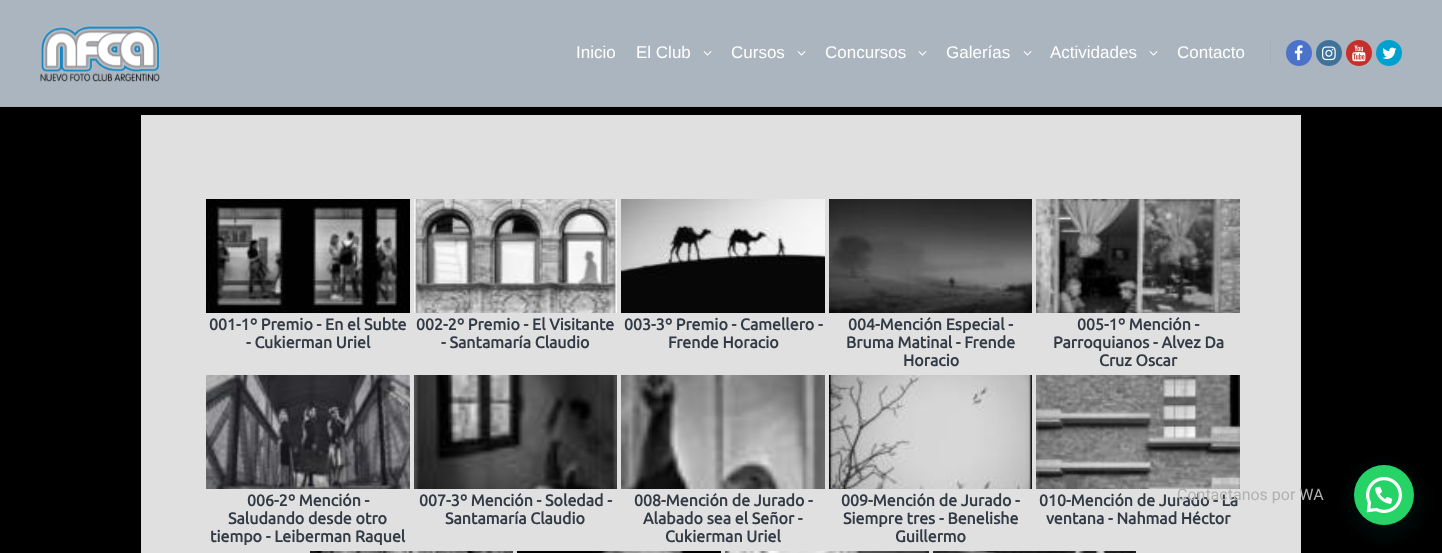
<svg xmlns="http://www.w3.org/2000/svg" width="1442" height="553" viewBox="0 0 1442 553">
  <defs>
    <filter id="blur1" x="-50%" y="-200%" width="200%" height="500%"><feGaussianBlur stdDeviation="12"/></filter>
  </defs>
  <rect width="100%" height="100%" fill="#000000"/>
  <rect x="0" y="0" width="1442" height="106" fill="#aab5bf"/>
  <rect x="0" y="106" width="1442" height="1" fill="#a3aeb7"/>
  <image x="40" y="25" width="120" height="57" href="img1.png"/>
  <text x="576" y="58" font-family="Liberation Sans" font-size="17" fill="#ffffff">Inicio</text>
  <text x="636" y="58" font-family="Liberation Sans" font-size="17" fill="#ffffff">El Club</text>
  <image x="703" y="51" width="9" height="5" href="img2.png"/>
  <text x="731" y="58" font-family="Liberation Sans" font-size="17" fill="#ffffff">Cursos</text>
  <image x="797" y="51" width="9" height="5" href="img2.png"/>
  <text x="825" y="58" font-family="Liberation Sans" font-size="17" fill="#ffffff">Concursos</text>
  <image x="918" y="51" width="9" height="5" href="img2.png"/>
  <text x="946" y="58" font-family="Liberation Sans" font-size="17" fill="#ffffff">Galerías</text>
  <image x="1023" y="51" width="9" height="5" href="img2.png"/>
  <text x="1050" y="58" font-family="Liberation Sans" font-size="17" fill="#ffffff">Actividades</text>
  <image x="1149" y="51" width="9" height="5" href="img2.png"/>
  <text x="1177" y="58" font-family="Liberation Sans" font-size="17" fill="#ffffff">Contacto</text>
  <rect x="1270" y="40" width="1" height="25" fill="#a3aeb7"/>
  <circle cx="1299" cy="53" r="13" fill="#4a73c9"/>
  <image x="1294" y="45" width="9" height="16" href="img3.png"/>
  <circle cx="1329" cy="53" r="13" fill="#3f729b"/>
  <image x="1322" y="46" width="14" height="15" href="img4.png"/>
  <circle cx="1359" cy="53" r="13" fill="#c4302b"/>
  <image x="1352" y="45" width="14" height="17" href="img5.png"/>
  <circle cx="1389" cy="53" r="13" fill="#00a0d1"/>
  <image x="1382" y="47" width="15" height="12" href="img6.png"/>
  <rect x="141" y="115" width="1160" height="438" fill="#e0e0e0"/>
  <image x="206" y="199" width="204" height="114" href="img7.png"/>
  <text x="209" y="330" font-family="Ubuntu" font-size="16" font-weight="bold" fill="#323a45">001-1º Premio - En el Subte</text>
  <text x="246" y="348" font-family="Ubuntu" font-size="16" font-weight="bold" fill="#323a45">- Cukierman Uriel</text>
  <image x="414" y="199" width="203" height="114" href="img8.png"/>
  <text x="416" y="330" font-family="Ubuntu" font-size="16" font-weight="bold" fill="#323a45">002-2º Premio - El Visitante</text>
  <text x="441" y="348" font-family="Ubuntu" font-size="16" font-weight="bold" fill="#323a45">- Santamaría Claudio</text>
  <image x="621" y="199" width="204" height="114" href="img9.png"/>
  <text x="624" y="330" font-family="Ubuntu" font-size="16" font-weight="bold" fill="#323a45">003-3º Premio - Camellero -</text>
  <text x="668" y="348" font-family="Ubuntu" font-size="16" font-weight="bold" fill="#323a45">Frende Horacio</text>
  <image x="829" y="199" width="203" height="114" href="img10.png"/>
  <text x="848" y="330" font-family="Ubuntu" font-size="16" font-weight="bold" fill="#323a45">004-Mención Especial -</text>
  <text x="846" y="348" font-family="Ubuntu" font-size="16" font-weight="bold" fill="#323a45">Bruma Matinal - Frende</text>
  <text x="903" y="366" font-family="Ubuntu" font-size="16" font-weight="bold" fill="#323a45">Horacio</text>
  <image x="1036" y="199" width="204" height="114" href="img11.png"/>
  <text x="1077" y="330" font-family="Ubuntu" font-size="16" font-weight="bold" fill="#323a45">005-1º Mención -</text>
  <text x="1053" y="348" font-family="Ubuntu" font-size="16" font-weight="bold" fill="#323a45">Parroquianos - Alvez Da</text>
  <text x="1099" y="366" font-family="Ubuntu" font-size="16" font-weight="bold" fill="#323a45">Cruz Oscar</text>
  <image x="206" y="375" width="204" height="114" href="img12.png"/>
  <text x="247" y="506" font-family="Ubuntu" font-size="16" font-weight="bold" fill="#323a45">006-2º Mención -</text>
  <text x="228" y="524" font-family="Ubuntu" font-size="16" font-weight="bold" fill="#323a45">Saludando desde otro</text>
  <text x="210" y="542" font-family="Ubuntu" font-size="16" font-weight="bold" fill="#323a45">tiempo - Leiberman Raquel</text>
  <image x="414" y="375" width="203" height="114" href="img13.png"/>
  <text x="419" y="506" font-family="Ubuntu" font-size="16" font-weight="bold" fill="#323a45">007-3º Mención - Soledad -</text>
  <text x="445" y="524" font-family="Ubuntu" font-size="16" font-weight="bold" fill="#323a45">Santamaría Claudio</text>
  <image x="621" y="375" width="204" height="114" href="img14.png"/>
  <text x="634" y="506" font-family="Ubuntu" font-size="16" font-weight="bold" fill="#323a45">008-Mención de Jurado -</text>
  <text x="643" y="524" font-family="Ubuntu" font-size="16" font-weight="bold" fill="#323a45">Alabado sea el Señor -</text>
  <text x="665" y="542" font-family="Ubuntu" font-size="16" font-weight="bold" fill="#323a45">Cukierman Uriel</text>
  <image x="829" y="375" width="203" height="114" href="img15.png"/>
  <text x="841" y="506" font-family="Ubuntu" font-size="16" font-weight="bold" fill="#323a45">009-Mención de Jurado -</text>
  <text x="843" y="524" font-family="Ubuntu" font-size="16" font-weight="bold" fill="#323a45">Siempre tres - Benelishe</text>
  <text x="895" y="542" font-family="Ubuntu" font-size="16" font-weight="bold" fill="#323a45">Guillermo</text>
  <image x="1036" y="375" width="204" height="114" href="img16.png"/>
  <text x="1039" y="506" font-family="Ubuntu" font-size="16" font-weight="bold" fill="#323a45">010-Mención de Jurado - La</text>
  <text x="1046" y="524" font-family="Ubuntu" font-size="16" font-weight="bold" fill="#323a45">ventana - Nahmad Héctor</text>
  <image x="310" y="551" width="203" height="2" href="img17.png"/>
  <image x="517" y="551" width="204" height="2" href="img18.png"/>
  <image x="725" y="551" width="204" height="2" href="img19.png"/>
  <image x="933" y="551" width="203" height="2" href="img20.png"/>
  <rect x="1355" y="471" width="60" height="60" rx="30" fill="#075e54" fill-opacity="0.24" filter="url(#blur1)"/>
  <circle cx="1384" cy="495" r="30" fill="#25d366"/>
  <image x="1366" y="477" width="36" height="36" href="img21.png"/>
  <text x="1177" y="500" font-family="Roboto" font-size="16" fill="#b0b0b0">Contactanos por WA</text>
</svg>
